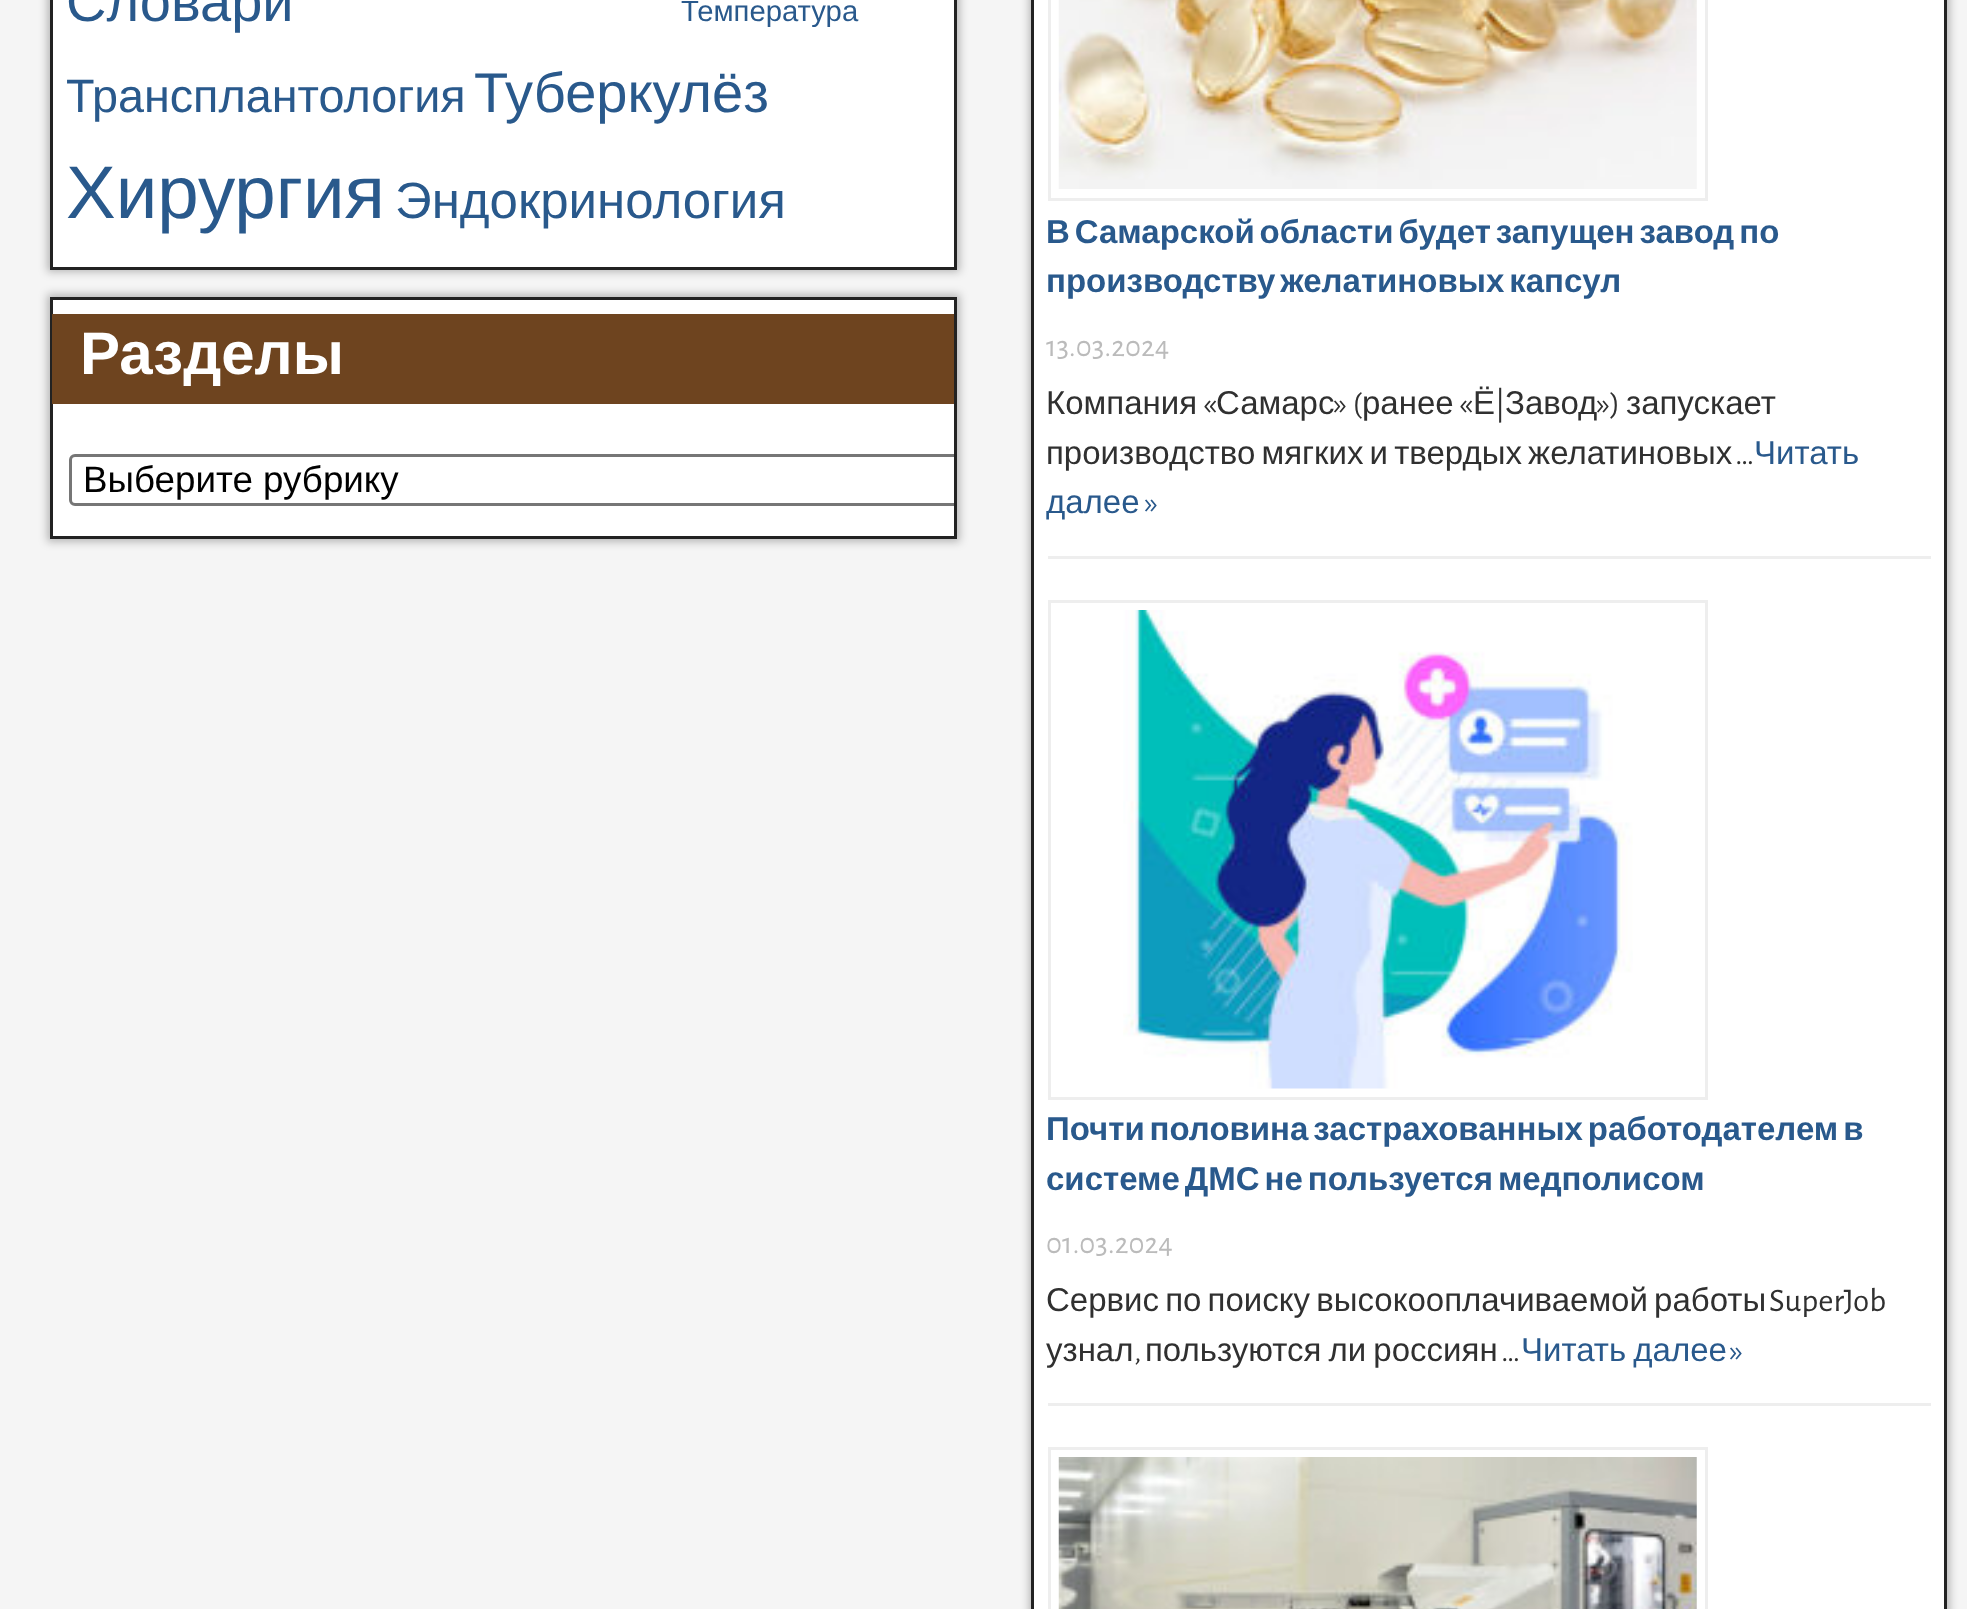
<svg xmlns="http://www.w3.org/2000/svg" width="1967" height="1609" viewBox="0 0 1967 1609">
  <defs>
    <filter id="blur1" x="-50%" y="-200%" width="200%" height="500%"><feGaussianBlur stdDeviation="4"/></filter>
    <clipPath id="clip1"><rect x="52" y="300" width="902" height="236"/></clipPath>
  </defs>
  <rect width="100%" height="100%" fill="#f5f5f5"/>
  <rect x="47" y="-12" width="913" height="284" fill="#000000" fill-opacity="0.25" filter="url(#blur1)"/>
  <rect x="51.5" y="-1.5" width="904" height="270" fill="#ffffff" stroke="#222222" stroke-width="3"/>
  <text x="66" y="21" font-family="Liberation Sans" font-size="56" fill="#29598c">Словари</text>
  <text x="681" y="21" font-family="Liberation Sans" font-size="29.25" fill="#29598c">Температура</text>
  <text x="66" y="112" font-family="Liberation Sans" font-size="46.75" fill="#29598c">Трансплантология</text>
  <text x="474" y="112" font-family="Liberation Sans" font-size="56" fill="#29598c">Туберкулёз</text>
  <text x="66" y="218" font-family="Liberation Sans" font-size="74.5" fill="#29598c">Хирургия</text>
  <text x="395" y="218" font-family="Liberation Sans" font-size="51" fill="#29598c">Эндокринология</text>
  <rect x="47" y="294" width="913" height="248" fill="#000000" fill-opacity="0.25" filter="url(#blur1)"/>
  <rect x="51.5" y="298.5" width="904" height="239" fill="#ffffff" stroke="#222222" stroke-width="3"/>
  <rect x="52" y="314" width="902" height="90" fill="#6e441f"/>
  <text x="80" y="374" font-family="Liberation Sans" font-size="60" font-weight="bold" fill="#ffffff">Разделы</text>
  <g clip-path="url(#clip1)">
    <rect x="70.5" y="455.5" width="962" height="49" rx="4.5" fill="none" stroke="#767676" stroke-width="3"/>
  </g>
  <text x="83" y="492" font-family="Liberation Sans" font-size="36.75" fill="#000000">Выберите рубрику</text>
  <rect x="1029" y="-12" width="921" height="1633" fill="#000000" fill-opacity="0.25" filter="url(#blur1)"/>
  <rect x="1032.5" y="-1.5" width="913" height="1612" fill="#ffffff" stroke="#222222" stroke-width="3"/>
  <rect x="1048" y="556" width="883" height="3" fill="#eeeeee"/>
  <rect x="1049.5" y="-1.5" width="657" height="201" fill="none" stroke="#eeeeee" stroke-width="3"/>
  <image x="1058" y="0" width="639" height="189" href="img1.png"/>
  <text x="1046" y="243" word-spacing="-4.25" font-family="Liberation Sans" font-size="33" font-weight="bold" fill="#29598c">В Самарской области будет запущен завод по</text>
  <text x="1046" y="292" word-spacing="-4.25" font-family="Liberation Sans" font-size="33" font-weight="bold" fill="#29598c">производству желатиновых капсул</text>
  <text x="1046" y="356" font-family="Alegreya Sans" font-size="30.25" fill="#bbbbbb">13.03.2024</text>
  <text x="1046" y="414" font-family="Liberation Sans" font-size="33" fill="#303030">Компания</text>
  <text x="1203" y="414" font-family="Alegreya Sans" font-size="33" fill="#303030">«</text>
  <text x="1216" y="414" font-family="Liberation Sans" font-size="33" fill="#303030">Самарс</text>
  <text x="1334" y="414" font-family="Alegreya Sans" font-size="33" fill="#303030">» (</text>
  <text x="1362" y="414" font-family="Liberation Sans" font-size="33" fill="#303030">ранее</text>
  <text x="1459" y="414" font-family="Alegreya Sans" font-size="33" fill="#303030">«</text>
  <text x="1473" y="414" font-family="Liberation Sans" font-size="33" fill="#303030">Ё</text>
  <text x="1495" y="414" font-family="Alegreya Sans" font-size="33" fill="#303030">|</text>
  <text x="1505" y="414" font-family="Liberation Sans" font-size="33" fill="#303030">Завод</text>
  <text x="1597" y="414" font-family="Alegreya Sans" font-size="33" fill="#303030">»)</text>
  <text x="1626" y="414" font-family="Liberation Sans" font-size="33" fill="#303030">запускает</text>
  <text x="1046" y="464" word-spacing="-3" font-family="Liberation Sans" font-size="33" fill="#303030">производство мягких и твердых желатиновых</text>
  <text x="1735" y="464" font-family="Alegreya Sans" font-size="33" fill="#303030">…</text>
  <text x="1754" y="464" font-family="Liberation Sans" font-size="33" fill="#29598c">Читать</text>
  <text x="1046" y="513" font-family="Liberation Sans" font-size="33" fill="#29598c">далее</text>
  <text x="1145" y="513" font-family="Alegreya Sans" font-size="33" fill="#29598c">»</text>
  <rect x="1048" y="1403" width="883" height="3" fill="#eeeeee"/>
  <rect x="1049.5" y="601.5" width="657" height="497" fill="none" stroke="#eeeeee" stroke-width="3"/>
  <image x="1123" y="610" width="510" height="479" href="img2.png"/>
  <text x="1046" y="1140" word-spacing="-4.25" font-family="Liberation Sans" font-size="33" font-weight="bold" fill="#29598c">Почти половина застрахованных работодателем в</text>
  <text x="1046" y="1190" word-spacing="-4.25" font-family="Liberation Sans" font-size="33" font-weight="bold" fill="#29598c">системе ДМС не пользуется медполисом</text>
  <text x="1046" y="1253" font-family="Alegreya Sans" font-size="30.25" fill="#bbbbbb">01.03.2024</text>
  <text x="1046" y="1311" word-spacing="-3" font-family="Liberation Sans" font-size="33" fill="#303030">Сервис по поиску высокооплачиваемой работы</text>
  <text x="1769" y="1311" font-family="Alegreya Sans" font-size="33" fill="#303030">SuperJob</text>
  <text x="1046" y="1361" font-family="Liberation Sans" font-size="33" fill="#303030">узнал</text>
  <text x="1145" y="1361" word-spacing="-2" font-family="Liberation Sans" font-size="33" fill="#303030">пользуются ли россиян</text>
  <text x="1521" y="1361" word-spacing="-2" font-family="Liberation Sans" font-size="33" fill="#29598c">Читать далее</text>
  <text x="1730" y="1361" font-family="Alegreya Sans" font-size="33" fill="#29598c">»</text>
  <text x="1134" y="1361" font-family="Alegreya Sans" font-size="33" fill="#303030">,</text>
  <text x="1501" y="1361" font-family="Alegreya Sans" font-size="33" fill="#303030">…</text>
  <rect x="1049.5" y="1448.5" width="657" height="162" fill="none" stroke="#eeeeee" stroke-width="3"/>
  <image x="1058" y="1457" width="639" height="152" href="img3.png"/>
</svg>
